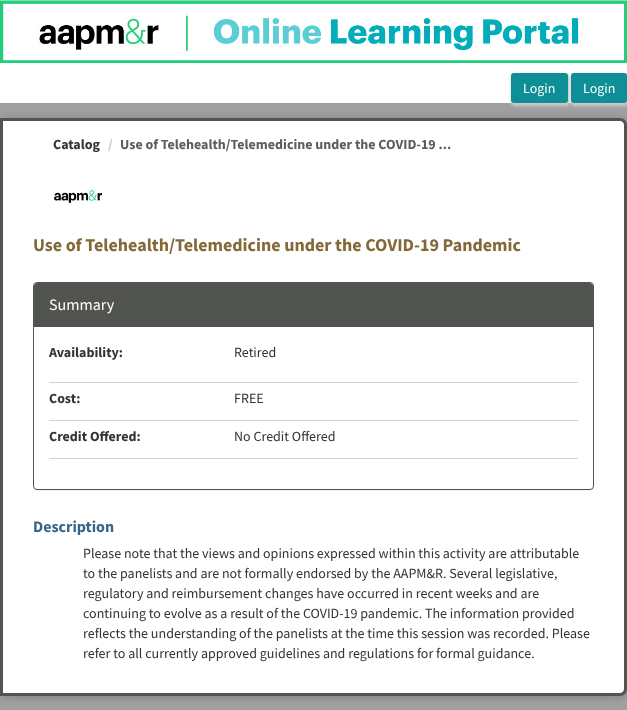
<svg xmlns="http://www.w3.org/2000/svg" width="627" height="710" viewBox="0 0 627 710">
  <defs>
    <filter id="blur1" x="-50%" y="-200%" width="200%" height="500%"><feGaussianBlur stdDeviation="1.5"/></filter>
    <filter id="blur2" x="-50%" y="-200%" width="200%" height="500%"><feGaussianBlur stdDeviation="4"/></filter>
    <filter id="blur3" x="-50%" y="-200%" width="200%" height="500%"><feGaussianBlur stdDeviation="0.5"/></filter>
  </defs>
  <rect width="100%" height="100%" fill="#a0a0a0"/>
  <rect x="0" y="63" width="627" height="40" fill="#ffffff"/>
  <image x="0" y="0" width="627" height="63" href="img1.png"/>
  <rect x="511" y="74" width="59" height="32" rx="4" fill="#cccccc" filter="url(#blur1)"/>
  <rect x="511" y="73" width="57" height="30" rx="3" fill="#0e8e97"/>
  <text x="523" y="93" font-family="Source Sans Pro" font-size="14" fill="#ffffff">Login</text>
  <rect x="571" y="74" width="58" height="32" rx="4" fill="#cccccc" filter="url(#blur1)"/>
  <rect x="571" y="73" width="56" height="30" rx="3" fill="#0e8e97"/>
  <text x="583" y="93" font-family="Source Sans Pro" font-size="14" fill="#ffffff">Login</text>
  <rect x="0" y="119" width="627" height="578" rx="7" fill="#000000" fill-opacity="0.2" filter="url(#blur2)"/>
  <path d="M1.5 119.5H620C623 119.5 625.5 122 625.5 125V689C625.5 692 623 694.5 620 694.5H1.5Z" fill="#ffffff" stroke="#52554f" stroke-width="3"/>
  <text x="53" y="149" font-family="Source Sans Pro" font-size="14" font-weight="bold" fill="#333333">Catalog</text>
  <text x="108" y="149" font-family="Source Sans Pro" font-size="14" font-weight="bold" fill="#cccccc">/</text>
  <text x="120" y="149" font-family="Source Sans Pro" font-size="14" font-weight="bold" fill="#5f5b5f">Use of Telehealth/Telemedicine under the COVID-19 ...</text>
  <image x="54" y="190" width="48" height="13" href="img2.png"/>
  <text x="33" y="251" font-family="Source Sans Pro" font-size="18" font-weight="bold" fill="#826937">Use of Telehealth/Telemedicine under the COVID-19 Pandemic</text>
  <rect x="33" y="283" width="561" height="208" rx="4" fill="#000000" fill-opacity="0.05" filter="url(#blur3)"/>
  <rect x="33.5" y="282.5" width="560" height="207" rx="3.5" fill="#ffffff" stroke="#52554f"/>
  <path d="M37 283H590C591.5 283 593 284.5 593 286V327H34V286C34 284.5 35.5 283 37 283Z" fill="#52554f"/>
  <text x="49" y="310" font-family="Source Sans Pro" font-size="16" fill="#ffffff">Summary</text>
  <text x="49" y="357" font-family="Source Sans Pro" font-size="14" font-weight="bold" fill="#333333">Availability:</text>
  <text x="234" y="357" font-family="Source Sans Pro" font-size="14" fill="#333333">Retired</text>
  <rect x="49" y="382" width="529" height="1" fill="#d0d0d0"/>
  <text x="49" y="403" font-family="Source Sans Pro" font-size="14" font-weight="bold" fill="#333333">Cost:</text>
  <text x="234" y="403" font-family="Source Sans Pro" font-size="14" fill="#333333">FREE</text>
  <rect x="49" y="420" width="529" height="1" fill="#d0d0d0"/>
  <text x="49" y="441" font-family="Source Sans Pro" font-size="14" font-weight="bold" fill="#333333">Credit Offered:</text>
  <text x="234" y="441" font-family="Source Sans Pro" font-size="14" fill="#333333">No Credit Offered</text>
  <rect x="49" y="458" width="529" height="1" fill="#d0d0d0"/>
  <text x="33" y="532" font-family="Source Sans Pro" font-size="16" font-weight="bold" fill="#38668a">Description</text>
  <text x="83" y="558" font-family="Source Sans Pro" font-size="14" fill="#333333">Please note that the views and opinions expressed within this activity are attributable</text>
  <text x="83" y="578" font-family="Source Sans Pro" font-size="14" fill="#333333">to the panelists and are not formally endorsed by the AAPM&amp;R. Several legislative,</text>
  <text x="83" y="598" font-family="Source Sans Pro" font-size="14" fill="#333333">regulatory and reimbursement changes have occurred in recent weeks and are</text>
  <text x="83" y="618" font-family="Source Sans Pro" font-size="14" fill="#333333">continuing to evolve as a result of the COVID-19 pandemic. The information provided</text>
  <text x="83" y="638" font-family="Source Sans Pro" font-size="14" fill="#333333">reflects the understanding of the panelists at the time this session was recorded. Please</text>
  <text x="83" y="658" font-family="Source Sans Pro" font-size="14" fill="#333333">refer to all currently approved guidelines and regulations for formal guidance.</text>
</svg>
